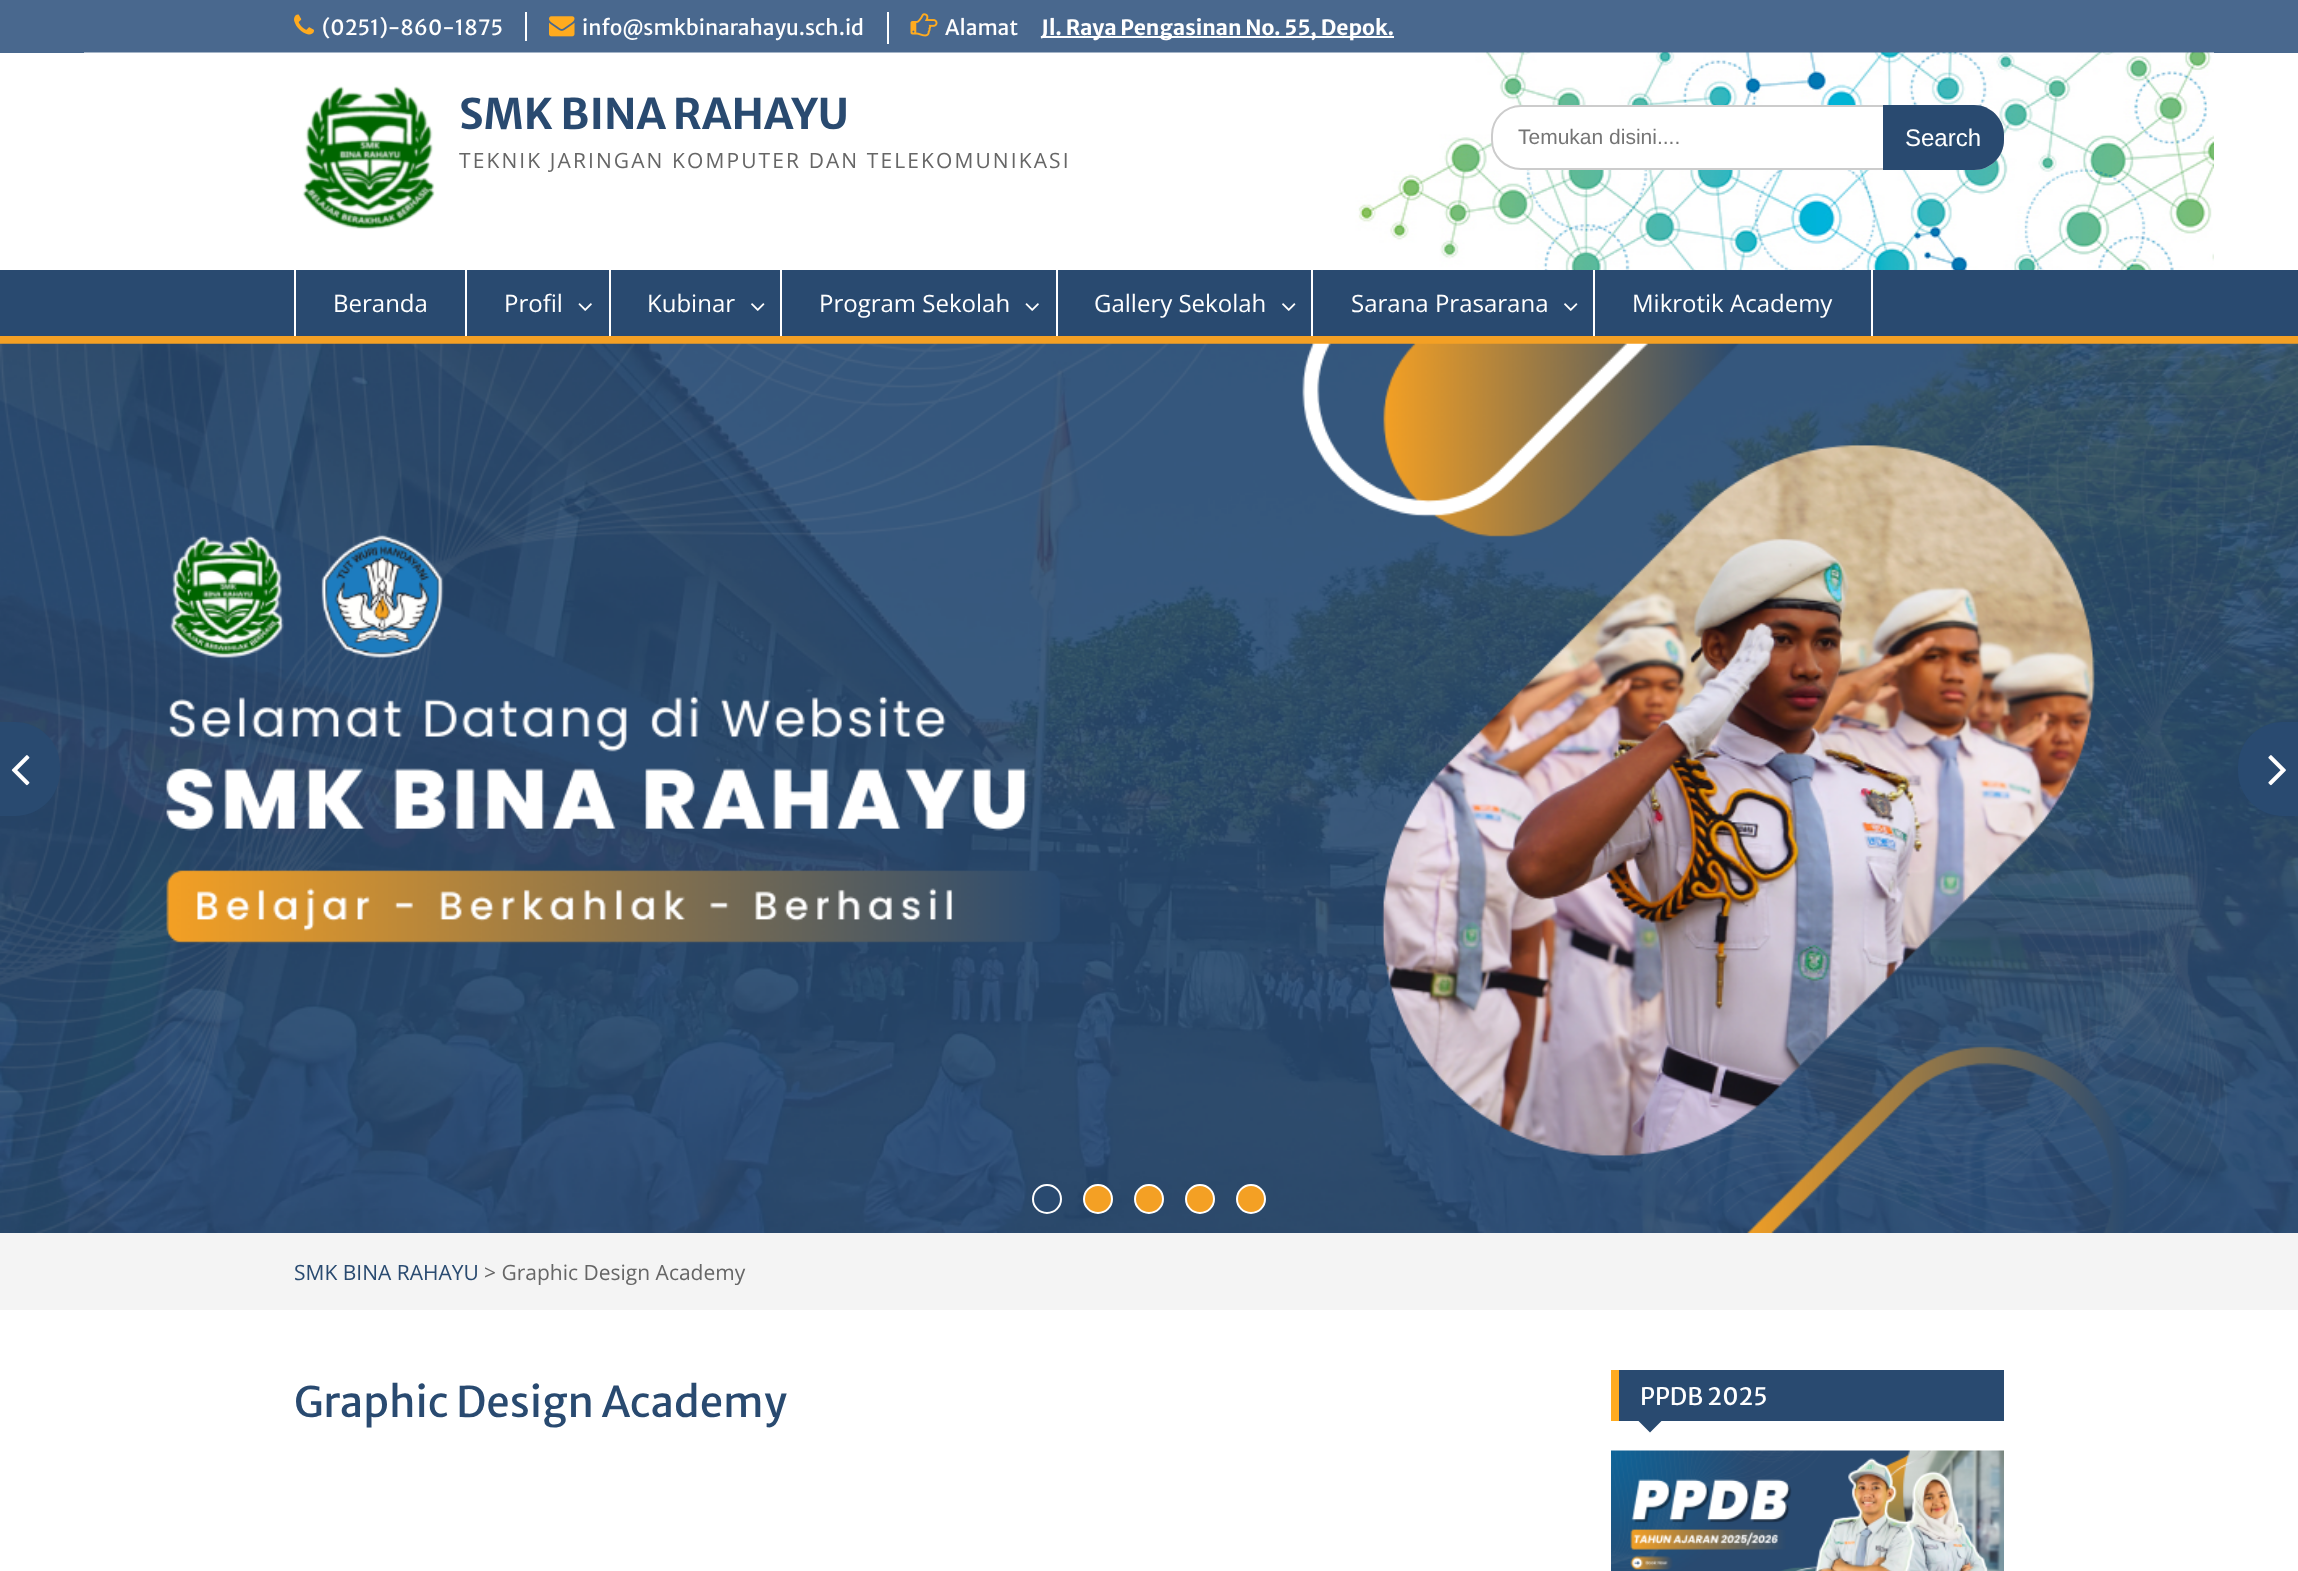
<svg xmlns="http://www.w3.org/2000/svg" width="2298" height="1571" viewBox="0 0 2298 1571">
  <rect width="100%" height="100%" fill="#ffffff"/>
  <rect x="0" y="0" width="2298" height="53" fill="#49688e"/>
  <image x="294" y="14" width="20" height="21" href="img1.png"/>
  <text x="322" y="35" font-family="Merriweather Sans" font-size="21" fill="#ffffff">(0251)-860-1875</text>
  <rect x="525" y="12" width="2" height="29" fill="#ffffff"/>
  <image x="549" y="16" width="26" height="21" href="img2.png"/>
  <text x="582" y="35" font-family="Merriweather Sans" font-size="21" fill="#ffffff">info@smkbinarahayu.sch.id</text>
  <rect x="887" y="12" width="2" height="32" fill="#ffffff"/>
  <image x="910" y="13" width="28" height="24" href="img3.png"/>
  <text x="945" y="35" font-family="Merriweather Sans" font-size="21" fill="#ffffff">Alamat</text>
  <rect x="1041" y="36" width="353" height="2" fill="#ffffff"/>
  <text x="1041" y="35" font-family="Merriweather Sans" font-size="21" font-weight="bold" fill="#ffffff">Jl. Raya Pengasinan No. 55, Depok.</text>
  <image x="84" y="52" width="2130" height="218" href="img4.png"/>
  <image x="302" y="86" width="133" height="144" href="img5.png"/>
  <text x="459" y="129" font-family="Merriweather Sans" font-size="42" font-weight="bold" fill="#294a70">SMK BINA RAHAYU</text>
  <text x="459" y="168" font-family="Open Sans" font-size="21" letter-spacing="2.1" fill="#666666">TEKNIK JARINGAN KOMPUTER DAN TELEKOMUNIKASI</text>
  <rect x="1492" y="106" width="511" height="63" rx="29" fill="#ffffff" stroke="#cccccc" stroke-width="2"/>
  <text x="1518" y="144" font-family="Liberation Sans" font-size="21" fill="#757575">Temukan disini....</text>
  <path d="M1883 105H1974C1990.5 105 2004 118.5 2004 135V140C2004 156.5 1990.5 170 1974 170H1883Z" fill="#294a70"/>
  <text x="1905" y="146" font-family="Liberation Sans" font-size="24" fill="#ffffff">Search</text>
  <rect x="0" y="270" width="2298" height="66" fill="#294a70"/>
  <rect x="0" y="336" width="2298" height="8" fill="#f4a024"/>
  <rect x="465" y="270" width="2" height="66" fill="#ffffff"/>
  <rect x="294" y="270" width="2" height="66" fill="#ffffff"/>
  <text x="333" y="312" font-family="Open Sans" font-size="24" fill="#ffffff">Beranda</text>
  <rect x="609" y="270" width="2" height="66" fill="#ffffff"/>
  <text x="504" y="312" font-family="Open Sans" font-size="24" fill="#ffffff">Profil</text>
  <image x="578" y="303" width="14" height="8" href="img6.png"/>
  <rect x="780" y="270" width="2" height="66" fill="#ffffff"/>
  <text x="647" y="312" font-family="Open Sans" font-size="24" fill="#ffffff">Kubinar</text>
  <image x="751" y="303" width="14" height="8" href="img7.png"/>
  <rect x="1056" y="270" width="2" height="66" fill="#ffffff"/>
  <text x="819" y="312" font-family="Open Sans" font-size="24" fill="#ffffff">Program Sekolah</text>
  <image x="1025" y="303" width="14" height="8" href="img6.png"/>
  <rect x="1311" y="270" width="2" height="66" fill="#ffffff"/>
  <text x="1094" y="312" font-family="Open Sans" font-size="24" fill="#ffffff">Gallery Sekolah</text>
  <image x="1282" y="303" width="14" height="8" href="img7.png"/>
  <rect x="1593" y="270" width="2" height="66" fill="#ffffff"/>
  <text x="1351" y="312" font-family="Open Sans" font-size="24" fill="#ffffff">Sarana Prasarana</text>
  <image x="1564" y="303" width="14" height="8" href="img7.png"/>
  <rect x="1871" y="270" width="2" height="66" fill="#ffffff"/>
  <text x="1632" y="312" font-family="Open Sans" font-size="24" fill="#ffffff">Mikrotik Academy</text>
  <image x="0" y="343" width="2298" height="890" href="img8.png"/>
  <path d="M0 722H15C40 722 60 742 60 767V771C60 796 40 816 15 816H0Z" fill="#294a70"/>
  <image x="11" y="755" width="19" height="31" href="img9.png"/>
  <path d="M2283 722H2298V816H2283C2258 816 2238 796 2238 771V767C2238 742 2258 722 2283 722Z" fill="#294a70"/>
  <image x="2268" y="755" width="18" height="31" href="img10.png"/>
  <circle cx="1047" cy="1199" r="14" fill="#294a70" stroke="#ffffff" stroke-width="2"/>
  <circle cx="1098" cy="1199" r="14" fill="#f4a024" stroke="#ffffff" stroke-width="2"/>
  <circle cx="1149" cy="1199" r="14" fill="#f4a024" stroke="#ffffff" stroke-width="2"/>
  <circle cx="1200" cy="1199" r="14" fill="#f4a024" stroke="#ffffff" stroke-width="2"/>
  <circle cx="1251" cy="1199" r="14" fill="#f4a024" stroke="#ffffff" stroke-width="2"/>
  <rect x="0" y="1233" width="2298" height="77" fill="#f4f4f4"/>
  <text x="294" y="1280" font-family="Open Sans" font-size="21" fill="#294a70">SMK BINA RAHAYU</text>
  <text x="484" y="1280" font-family="Open Sans" font-size="21" fill="#666666">&gt; Graphic Design Academy</text>
  <text x="294" y="1417" font-family="Merriweather Sans" font-size="42" fill="#294a70">Graphic Design Academy</text>
  <rect x="1619" y="1370" width="385" height="51" fill="#294a70"/>
  <rect x="1611" y="1370" width="8" height="51" fill="#ffab1f"/>
  <text x="1640" y="1405" font-family="Merriweather Sans" font-size="24" fill="#ffffff">PPDB 2025</text>
  <path d="M1636.5 1419H1663.5L1650 1432.5Z" fill="#294a70"/>
  <image x="1611" y="1450" width="393" height="121" href="img11.png"/>
</svg>
